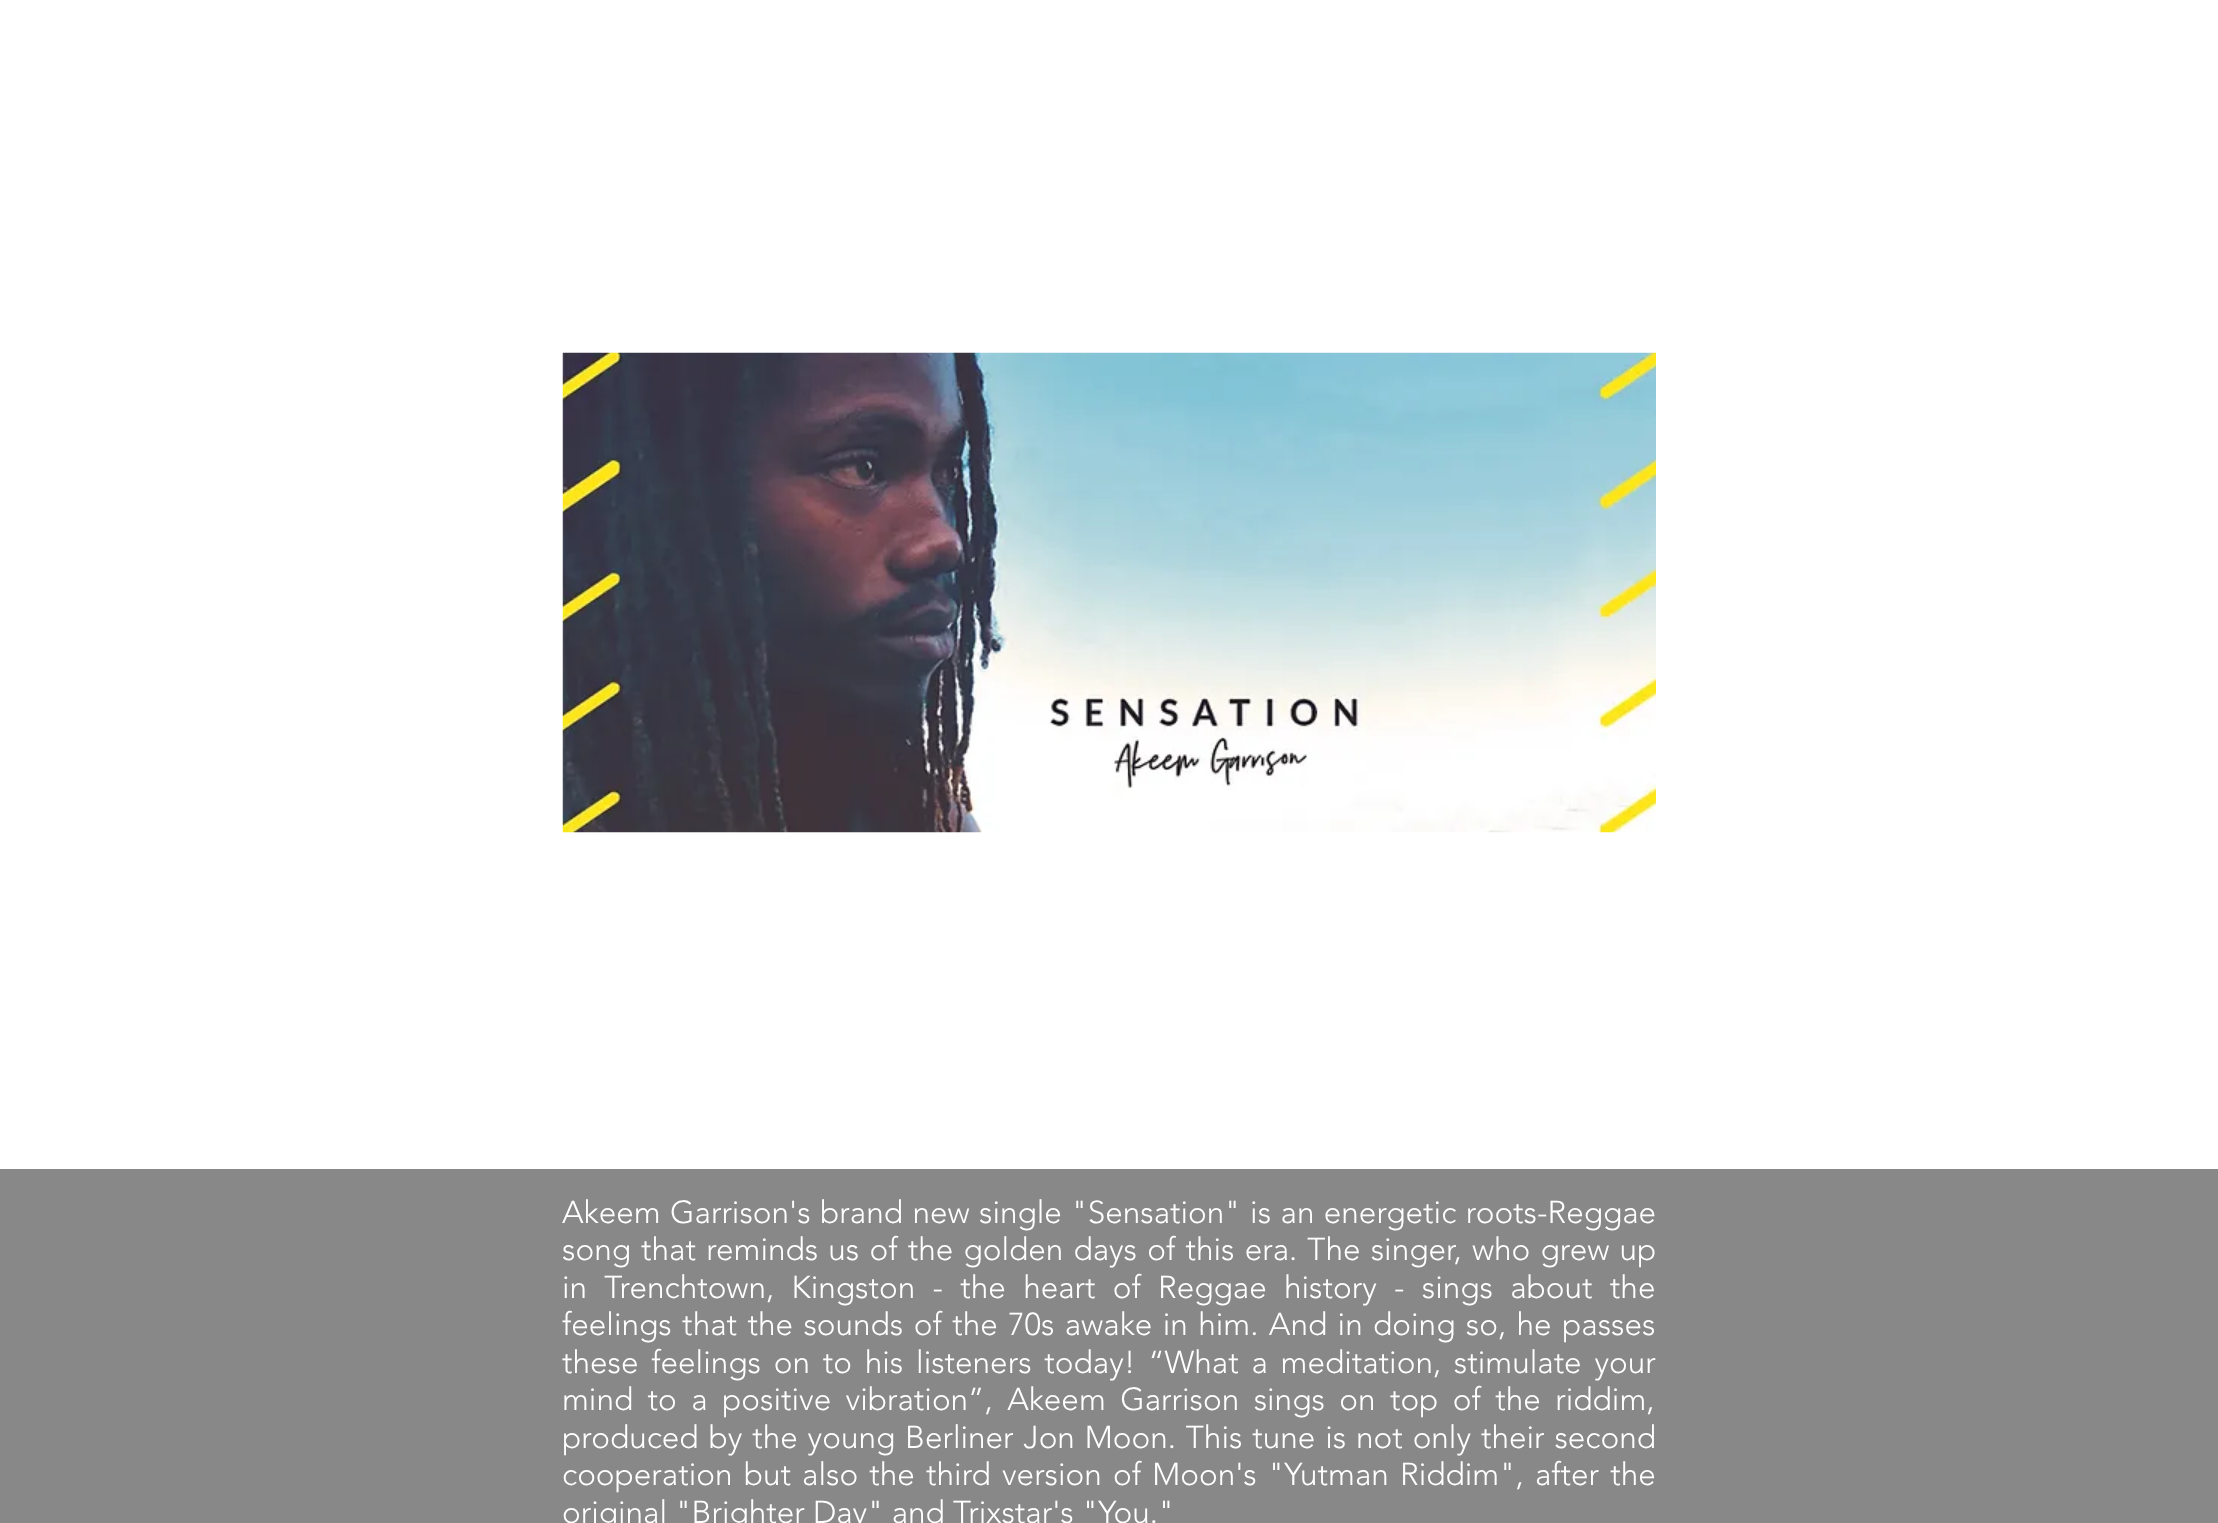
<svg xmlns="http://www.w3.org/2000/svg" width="2218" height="1523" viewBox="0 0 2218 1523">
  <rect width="100%" height="100%" fill="#ffffff"/>
  <image x="562" y="352" width="1094" height="481" href="img1.png"/>
  <rect x="0" y="1169" width="2218" height="354" fill="#888888"/>
  <text x="562" y="1223" word-spacing="1.25" font-family="'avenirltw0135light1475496'" font-size="31.5" font-weight="300" fill="#ffffff">Akeem Garrison's brand new single "Sensation" is an energetic roots-Reggae</text>
  <text x="562" y="1260" word-spacing="2" font-family="'avenirltw0135light1475496'" font-size="31.5" font-weight="300" fill="#ffffff">song that reminds us of the golden days of this era. The singer, who grew up</text>
  <text x="562" y="1298" word-spacing="9.1" font-family="'avenirltw0135light1475496'" font-size="31.5" font-weight="300" fill="#ffffff">in Trenchtown, Kingston - the heart of Reggae history - sings about the</text>
  <text x="562" y="1335" word-spacing="2.25" font-family="'avenirltw0135light1475496'" font-size="31.5" font-weight="300" fill="#ffffff">feelings that the sounds of the 70s awake in him. And in doing so, he passes</text>
  <text x="562" y="1373" word-spacing="4.6" font-family="'avenirltw0135light1475496'" font-size="31.5" font-weight="300" fill="#ffffff">these feelings on to his listeners today! “What a meditation, stimulate your</text>
  <text x="562" y="1410" word-spacing="6.25" font-family="'avenirltw0135light1475496'" font-size="31.5" font-weight="300" fill="#ffffff">mind to a positive vibration”, Akeem Garrison sings on top of the riddim,</text>
  <text x="562" y="1448" word-spacing="1.7" font-family="'avenirltw0135light1475496'" font-size="31.5" font-weight="300" fill="#ffffff">produced by the young Berliner Jon Moon. This tune is not only their second</text>
  <text x="562" y="1485" word-spacing="3" font-family="'avenirltw0135light1475496'" font-size="31.5" font-weight="300" fill="#ffffff">cooperation but also the third version of Moon's "Yutman Riddim", after the</text>
  <text x="562" y="1523" font-family="'avenirltw0135light1475496'" font-size="31.5" font-weight="300" fill="#ffffff">original "Brighter Day" and Trixstar's "You."</text>
</svg>
